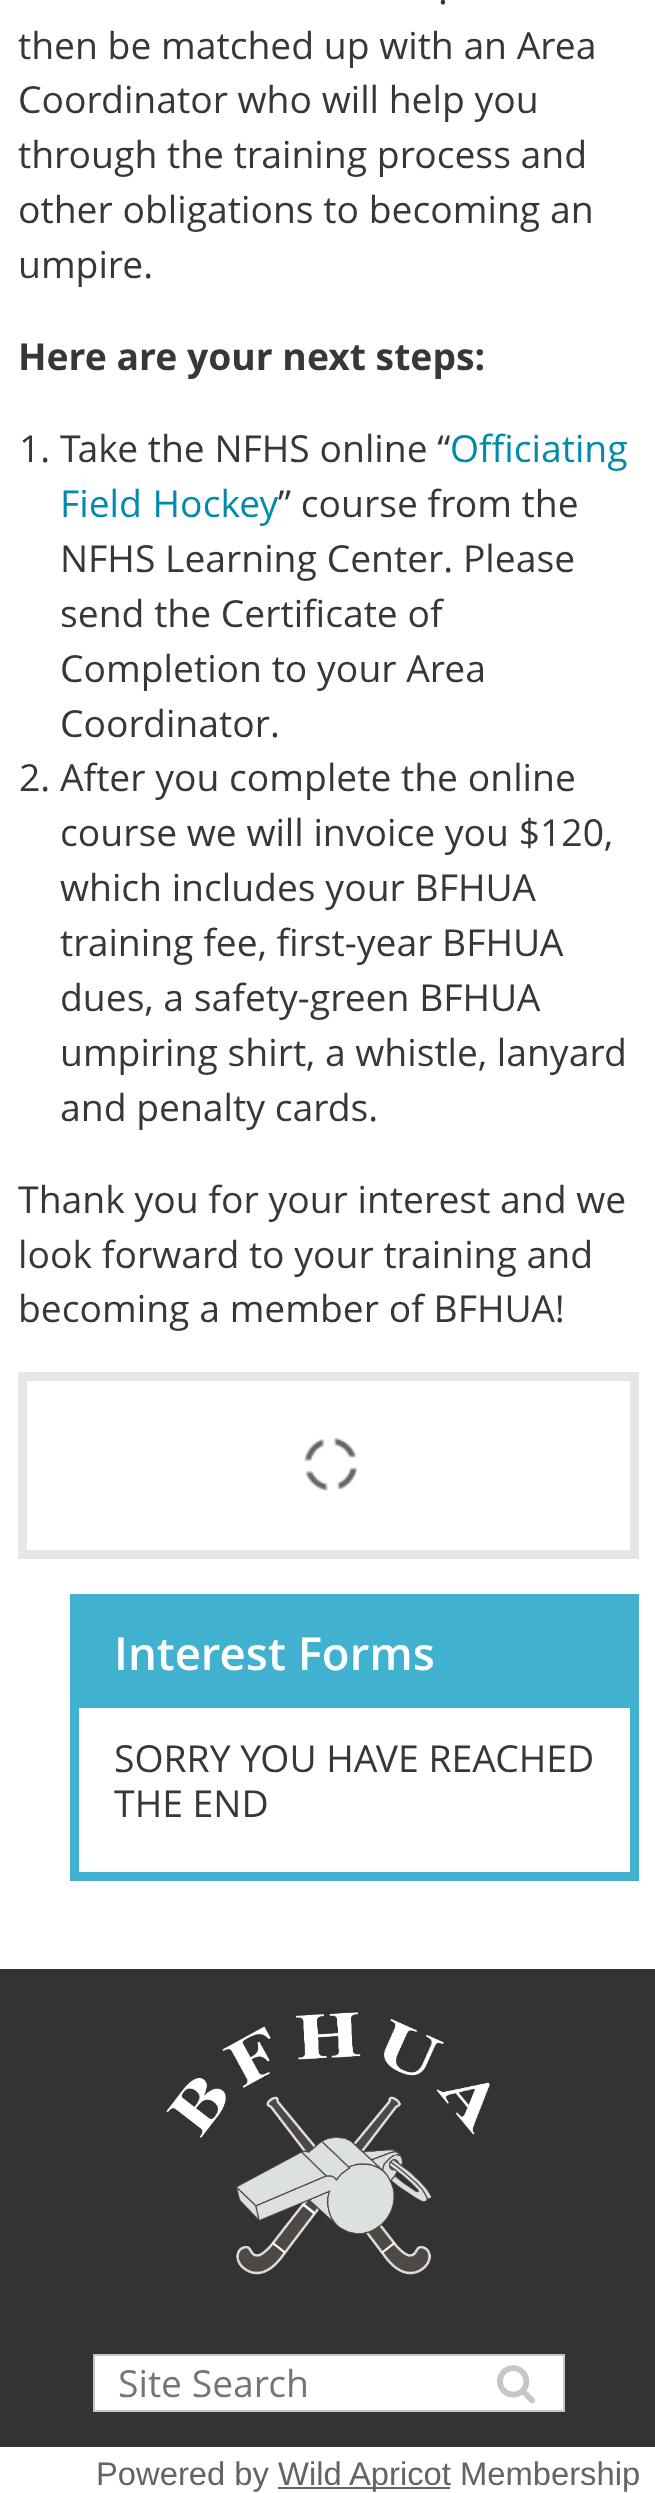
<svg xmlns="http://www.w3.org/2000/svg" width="655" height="2493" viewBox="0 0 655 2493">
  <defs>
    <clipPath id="clip1"><rect x="18" y="0" width="621" height="1337"/></clipPath>
  </defs>
  <rect width="100%" height="100%" fill="#ffffff"/>
  <text x="438" y="4" font-family="Open Sans" font-size="37.3" fill="#373737">.</text>
  <text x="18" y="59" font-family="Open Sans" font-size="37.3" fill="#373737">then be matched up with an Area</text>
  <text x="18" y="113" font-family="Open Sans" font-size="37.3" fill="#373737">Coordinator who will help you</text>
  <text x="18" y="168" font-family="Open Sans" font-size="37.3" fill="#373737">through the training process and</text>
  <text x="18" y="223" font-family="Open Sans" font-size="37.3" fill="#373737">other obligations to becoming an</text>
  <text x="18" y="278" font-family="Open Sans" font-size="37.3" fill="#373737">umpire.</text>
  <text x="18" y="370" font-family="Open Sans" font-size="37.3" font-weight="bold" fill="#373737">Here are your next steps:</text>
  <text x="19" y="462" font-family="Open Sans" font-size="37.3" fill="#373737">1. Take the NFHS online “</text>
  <text x="450" y="462" font-family="Open Sans" font-size="37.3" fill="#008bae">Officiating</text>
  <text x="60" y="517" word-spacing="1" font-family="Open Sans" font-size="37.3" fill="#008bae">Field Hockey</text>
  <text x="278" y="517" font-family="Open Sans" font-size="37.3" fill="#373737">” course from the</text>
  <text x="60" y="572" font-family="Open Sans" font-size="37.3" fill="#373737">NFHS Learning Center. Please</text>
  <text x="60" y="627" font-family="Open Sans" font-size="37.3" fill="#373737">send the Certificate of</text>
  <text x="60" y="682" font-family="Open Sans" font-size="37.3" fill="#373737">Completion to your Area</text>
  <text x="60" y="737" font-family="Open Sans" font-size="37.3" fill="#373737">Coordinator.</text>
  <text x="19" y="791" font-family="Open Sans" font-size="37.3" fill="#373737">2. After you complete the online</text>
  <text x="60" y="846" font-family="Open Sans" font-size="37.3" fill="#373737">course we will invoice you $120,</text>
  <text x="60" y="901" font-family="Open Sans" font-size="37.3" fill="#373737">which includes your BFHUA</text>
  <text x="60" y="956" font-family="Open Sans" font-size="37.3" fill="#373737">training fee, first-year BFHUA</text>
  <text x="60" y="1011" font-family="Open Sans" font-size="37.3" fill="#373737">dues, a safety-green BFHUA</text>
  <text x="60" y="1066" font-family="Open Sans" font-size="37.3" fill="#373737">umpiring shirt, a whistle, lanyard</text>
  <text x="60" y="1121" font-family="Open Sans" font-size="37.3" fill="#373737">and penalty cards.</text>
  <g clip-path="url(#clip1)">
    <text x="18" y="1213" font-family="Open Sans" font-size="37.3" fill="#373737">Thank you for your interest and we</text>
  </g>
  <text x="18" y="1268" font-family="Open Sans" font-size="37.3" fill="#373737">look forward to your training and</text>
  <text x="18" y="1322" font-family="Open Sans" font-size="37.3" fill="#373737">becoming a member of BFHUA!</text>
  <rect x="22.5" y="1376.5" width="612" height="178" fill="none" stroke="#e6e6e6" stroke-width="9"/>
  <image x="304" y="1438" width="53" height="53" href="img1.png"/>
  <rect x="74.5" y="1598.5" width="560" height="278" fill="none" stroke="#40b2cf" stroke-width="9"/>
  <rect x="79" y="1603" width="551" height="105" fill="#40b2cf"/>
  <text x="114" y="1670" font-family="Open Sans" font-size="45.5" font-weight="600" fill="#ffffff">Interest Forms</text>
  <text x="114" y="1772" font-family="Open Sans" font-size="37.3" fill="#373737">SORRY YOU HAVE REACHED</text>
  <text x="114" y="1817" font-family="Open Sans" font-size="37.3" fill="#373737">THE END</text>
  <rect x="0" y="1969" width="655" height="478" fill="#333333"/>
  <image x="166" y="2012" width="324" height="263" href="img2.png"/>
  <rect x="94" y="2355" width="470" height="56" fill="#ffffff" stroke="#c6c6c6" stroke-width="2"/>
  <text x="118" y="2397" font-family="Open Sans" font-size="37.3" fill="#757575">Site Search</text>
  <image x="497" y="2365" width="39" height="39" href="img3.png"/>
  <text x="96" y="2485" font-family="Liberation Sans" font-size="32.75" fill="#646464">Powered by</text>
  <rect x="278" y="2487" width="172" height="2" fill="#646464"/>
  <text x="278" y="2485" font-family="Liberation Sans" font-size="32.75" fill="#646464">Wild Apricot Membership</text>
</svg>
